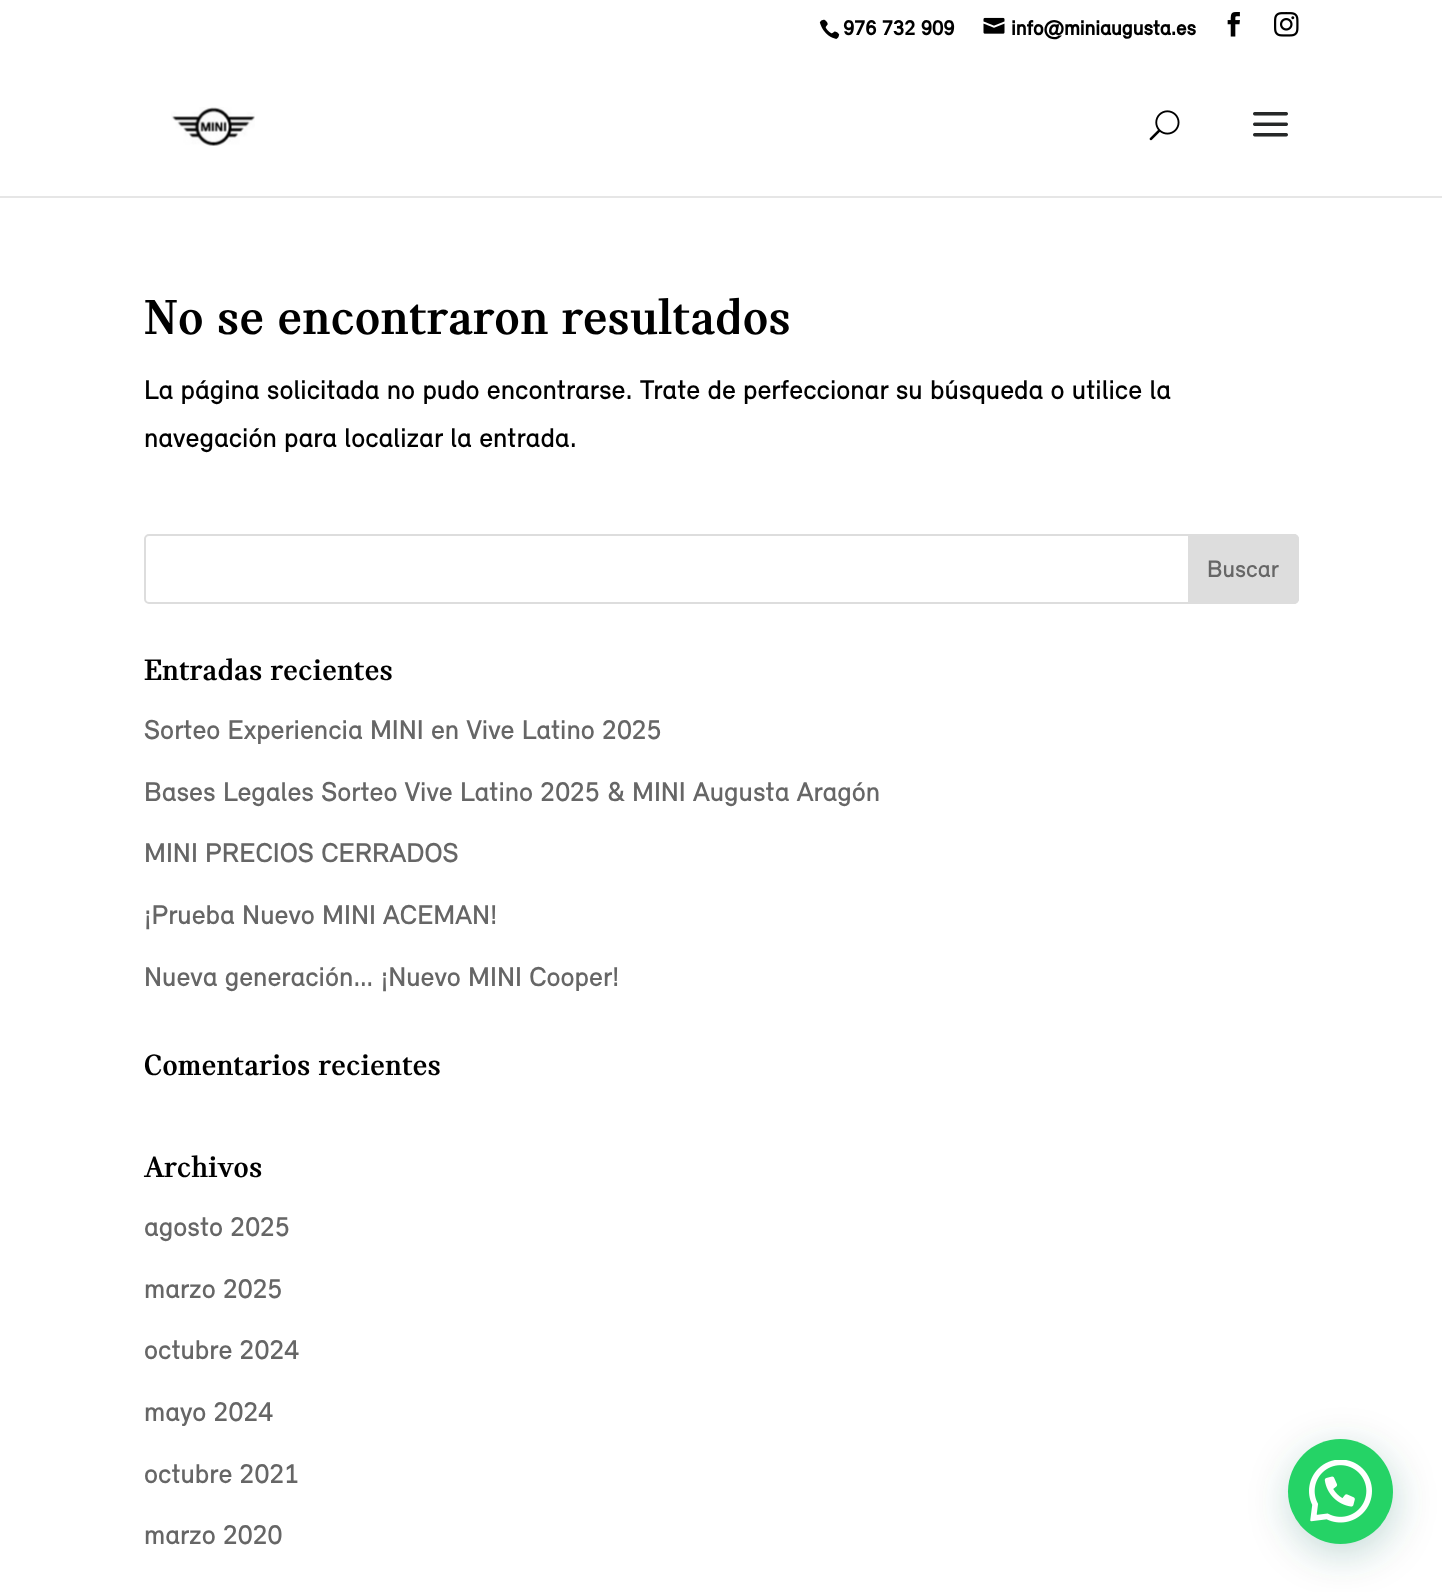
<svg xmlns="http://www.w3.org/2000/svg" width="1442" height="1592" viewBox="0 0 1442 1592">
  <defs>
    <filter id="blur1" x="-50%" y="-200%" width="200%" height="500%"><feGaussianBlur stdDeviation="21"/></filter>
  </defs>
  <rect width="100%" height="100%" fill="#ffffff"/>
  <image x="819" y="19" width="21" height="20" href="img1.png"/>
  <text x="843" y="35" font-family="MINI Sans" font-size="21" font-weight="bold" fill="#000000">976 732 909</text>
  <image x="983" y="17" width="22" height="17" href="img2.png"/>
  <text x="1011" y="35" font-family="MINI Sans" font-size="21" font-weight="bold" fill="#000000">info@miniaugusta.es</text>
  <image x="1227" y="12" width="13" height="25" href="img3.png"/>
  <image x="1274" y="12" width="25" height="25" href="img4.png"/>
  <rect x="0" y="196" width="1442" height="2" fill="#e6e6e6"/>
  <image x="171" y="107" width="84" height="39" href="img5.png"/>
  <image x="1149" y="110" width="31" height="31" href="img6.png"/>
  <image x="1253" y="112" width="35" height="25" href="img7.png"/>
  <text x="144" y="334" font-family="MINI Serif" font-size="52.5" font-weight="bold" fill="#000000">No se encontraron resultados</text>
  <text x="144" y="399" font-family="MINI Sans" font-size="28" font-weight="500" fill="#000000">La página solicitada no pudo encontrarse. Trate de perfeccionar su búsqueda o utilice la</text>
  <text x="144" y="447" font-family="MINI Sans" font-size="28" font-weight="500" fill="#000000">navegación para localizar la entrada.</text>
  <rect x="145" y="535" width="1153" height="68" rx="4" fill="none" stroke="#dddddd" stroke-width="2"/>
  <path d="M1189 535H1294C1296 535 1298 537 1298 539V599C1298 601 1296 603 1294 603H1189Z" fill="#dddddd" stroke="#dddddd" stroke-width="2"/>
  <text x="1207" y="577" font-family="MINI Sans" font-size="24.5" font-weight="500" fill="#666666">Buscar</text>
  <text x="144" y="680" font-family="MINI Serif" font-size="31.5" font-weight="bold" fill="#000000">Entradas recientes</text>
  <text x="144" y="739" font-family="MINI Sans" font-size="28" font-weight="500" fill="#666666">Sorteo Experiencia MINI en Vive Latino 2025</text>
  <text x="144" y="801" font-family="MINI Sans" font-size="28" font-weight="500" fill="#666666">Bases Legales Sorteo Vive Latino 2025 &amp; MINI Augusta Aragón</text>
  <text x="144" y="862" font-family="MINI Sans" font-size="28" font-weight="500" fill="#666666">MINI PRECIOS CERRADOS</text>
  <text x="144" y="924" font-family="MINI Sans" font-size="28" font-weight="500" fill="#666666">¡Prueba Nuevo MINI ACEMAN!</text>
  <text x="144" y="986" font-family="MINI Sans" font-size="28" font-weight="500" fill="#666666">Nueva generación… ¡Nuevo MINI Cooper!</text>
  <text x="144" y="1075" font-family="MINI Serif" font-size="31.5" font-weight="bold" fill="#000000">Comentarios recientes</text>
  <text x="144" y="1177" font-family="MINI Serif" font-size="31.5" font-weight="bold" fill="#000000">Archivos</text>
  <text x="144" y="1236" font-family="MINI Sans" font-size="28" font-weight="500" fill="#666666">agosto 2025</text>
  <text x="144" y="1298" font-family="MINI Sans" font-size="28" font-weight="500" fill="#666666">marzo 2025</text>
  <text x="144" y="1359" font-family="MINI Sans" font-size="28" font-weight="500" fill="#666666">octubre 2024</text>
  <text x="144" y="1421" font-family="MINI Sans" font-size="28" font-weight="500" fill="#666666">mayo 2024</text>
  <text x="144" y="1483" font-family="MINI Sans" font-size="28" font-weight="500" fill="#666666">octubre 2021</text>
  <text x="144" y="1544" font-family="MINI Sans" font-size="28" font-weight="500" fill="#666666">marzo 2020</text>
  <rect x="1290" y="1449" width="105" height="105" rx="52.5" fill="#075e54" fill-opacity="0.24" filter="url(#blur1)"/>
  <circle cx="1340.5" cy="1491.5" r="52.5" fill="#25d366"/>
  <image x="1309" y="1460" width="63" height="63" href="img8.png"/>
</svg>
